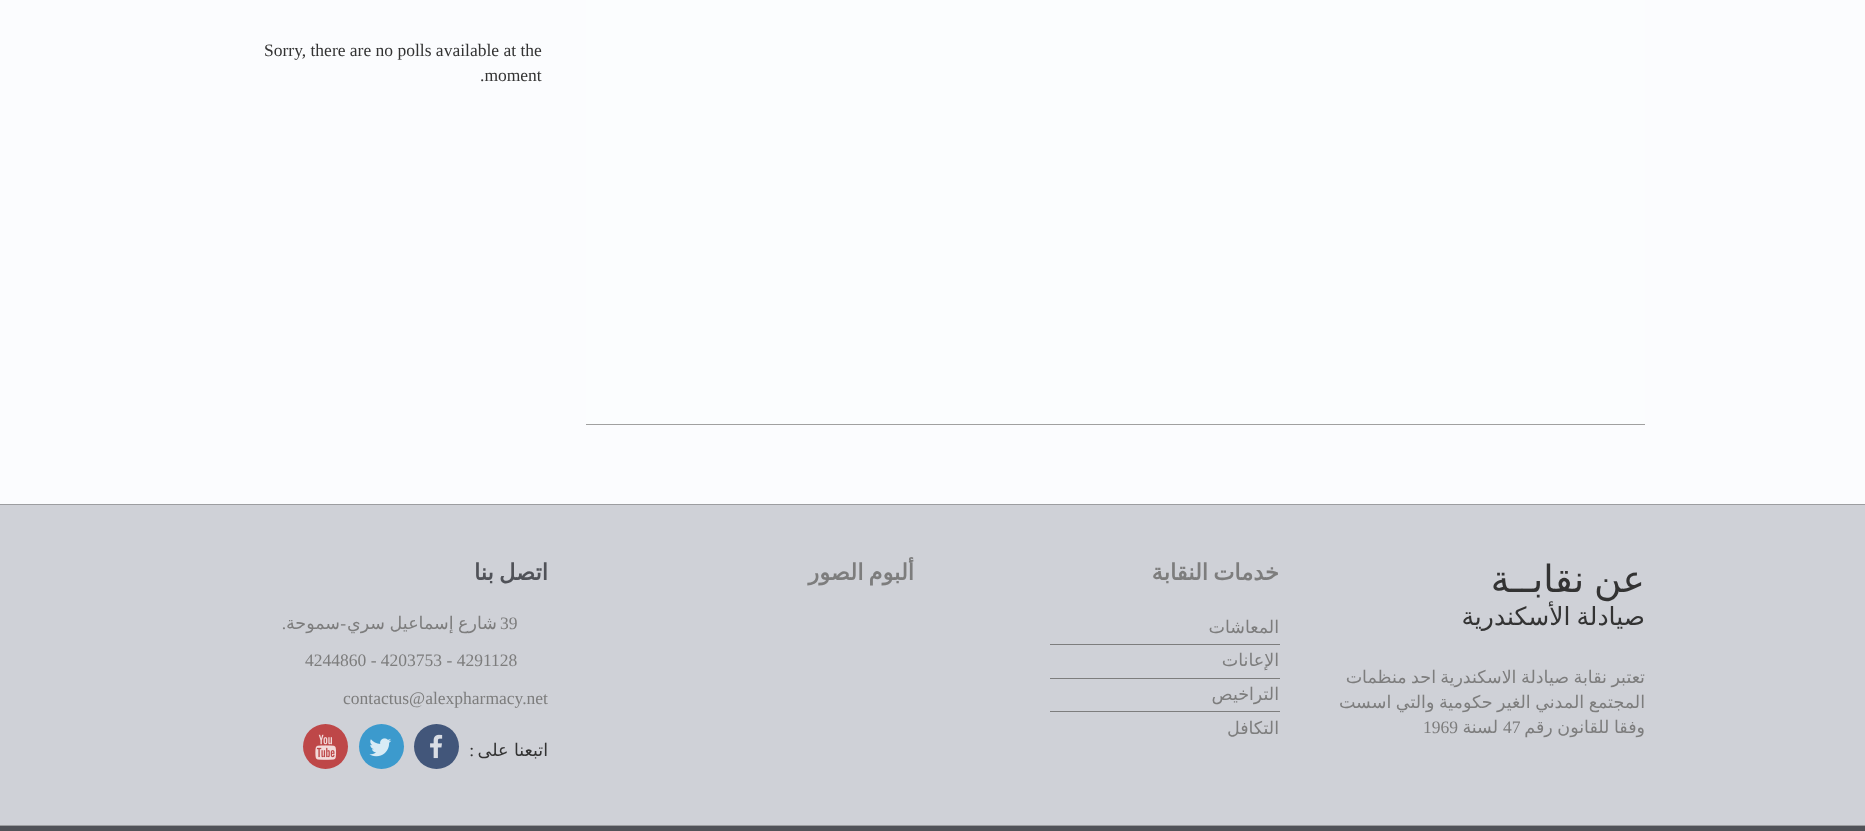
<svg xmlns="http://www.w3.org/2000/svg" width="1865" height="831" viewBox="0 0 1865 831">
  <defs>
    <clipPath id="clip1"><path d="M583 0H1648V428H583ZM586-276H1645V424H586Z" clip-rule="evenodd"/></clipPath>
    <filter id="blur1" x="-50%" y="-200%" width="200%" height="500%"><feGaussianBlur stdDeviation="0.5"/></filter>
  </defs>
  <rect width="100%" height="100%" fill="#fbfcfe"/>
  <g clip-path="url(#clip1)">
    <rect x="586" y="-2" width="1059" height="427" fill="#a0a0a0" filter="url(#blur1)"/>
  </g>
  <rect x="586" y="0" width="1059" height="424" fill="#fbfcfe" fill-opacity="0.8"/>
  <text x="264" y="56" font-family="Liberation Serif" font-size="17.5" fill="#333333">Sorry, there are no polls available at the</text>
  <text x="480" y="81" font-family="Liberation Serif" font-size="17.5" fill="#333333">.moment</text>
  <rect x="0" y="505" width="1865" height="320" fill="#cfd1d7"/>
  <rect x="0" y="504" width="1865" height="1" fill="#9c9da0"/>
  <text x="1645" y="592" word-spacing="-2" font-family="DejaVu Sans" font-size="37.5" direction="rtl" fill="#333333">عن نقابــة</text>
  <text x="1645" y="625" word-spacing="-2" font-family="DejaVu Sans" font-size="25" direction="rtl" fill="#333333">صيادلة الأسكندرية</text>
  <text x="1645" y="683" word-spacing="-1" font-family="DejaVu Sans" font-size="17.5" direction="rtl" fill="#7d7d7d">تعتبر نقابة صيادلة الاسكندرية</text>
  <text x="1436" y="683" word-spacing="-1" font-family="DejaVu Sans" font-size="17.5" direction="rtl" fill="#7d7d7d">احد منظمات</text>
  <text x="1645" y="708" word-spacing="-1" font-family="DejaVu Sans" font-size="17.5" direction="rtl" fill="#7d7d7d">المجتمع المدني الغير حكومية والتي اسست</text>
  <text x="1645" y="733" word-spacing="-1" font-family="DejaVu Sans" font-size="17.5" direction="rtl" fill="#7d7d7d">وفقا للقانون رقم</text>
  <text x="1503" y="733" font-family="Liberation Serif" font-size="17.5" fill="#7d7d7d">47</text>
  <text x="1498" y="733" font-family="DejaVu Sans" font-size="17.5" direction="rtl" fill="#7d7d7d">لسنة</text>
  <text x="1423" y="733" font-family="Liberation Serif" font-size="17.5" fill="#7d7d7d">1969</text>
  <text x="1279" y="580" word-spacing="-2" font-family="DejaVu Sans" font-size="22.5" font-weight="bold" direction="rtl" fill="#7d7d7d">خدمات النقابة</text>
  <rect x="1050" y="644" width="230" height="1" fill="#7d7d7d"/>
  <text x="1279" y="633" font-family="DejaVu Sans" font-size="17.5" direction="rtl" fill="#7d7d7d">المعاشات</text>
  <rect x="1050" y="678" width="230" height="1" fill="#7d7d7d"/>
  <text x="1279" y="666" font-family="DejaVu Sans" font-size="17.5" direction="rtl" fill="#7d7d7d">الإعانات</text>
  <rect x="1050" y="711" width="230" height="1" fill="#7d7d7d"/>
  <text x="1279" y="700" font-family="DejaVu Sans" font-size="17.5" direction="rtl" fill="#7d7d7d">التراخيص</text>
  <text x="1279" y="734" font-family="DejaVu Sans" font-size="17.5" direction="rtl" fill="#7d7d7d">التكافل</text>
  <text x="914" y="580" word-spacing="-2" font-family="DejaVu Sans" font-size="22.5" font-weight="bold" direction="rtl" fill="#7d7d7d">ألبوم الصور</text>
  <text x="548" y="580" word-spacing="-2" font-family="DejaVu Sans" font-size="22.5" font-weight="bold" direction="rtl" fill="#505258">اتصل بنا</text>
  <text x="500" y="629" font-family="Liberation Serif" font-size="17.5" fill="#7d7d7d">39</text>
  <text x="497" y="629" word-spacing="-1" font-family="DejaVu Sans" font-size="17.5" direction="rtl" fill="#7d7d7d">شارع إسماعيل سري</text>
  <text x="346" y="629" font-family="Liberation Serif" font-size="17.5" direction="rtl" fill="#7d7d7d">-</text>
  <text x="340" y="629" font-family="DejaVu Sans" font-size="17.5" direction="rtl" fill="#7d7d7d">سموحة</text>
  <text x="286" y="629" font-family="Liberation Serif" font-size="17.5" direction="rtl" fill="#7d7d7d">.</text>
  <text x="305" y="666" font-family="Liberation Serif" font-size="17.5" fill="#7d7d7d">4244860 - 4203753 - 4291128</text>
  <text x="343" y="704" font-family="Liberation Serif" font-size="17.5" fill="#7d7d7d">contactus@alexpharmacy.net</text>
  <text x="548" y="756" font-family="DejaVu Sans" font-size="17.5" direction="rtl" fill="#333333">اتبعنا على</text>
  <text x="474" y="756" font-family="Liberation Serif" font-size="17.5" direction="rtl" fill="#333333">:</text>
  <circle cx="436.5" cy="746.5" r="22.5" fill="#42567a"/>
  <image x="430" y="734" width="13" height="25" href="img1.png"/>
  <circle cx="381.5" cy="746.5" r="22.5" fill="#3c9acd"/>
  <image x="369" y="738" width="23" height="19" href="img2.png"/>
  <circle cx="325.5" cy="746.5" r="22.5" fill="#be4748"/>
  <image x="315" y="734" width="22" height="26" href="img3.png"/>
  <rect x="0" y="826" width="1865" height="5" fill="#505258"/>
  <rect x="0" y="825" width="1865" height="1" fill="#9c9da0"/>
</svg>
